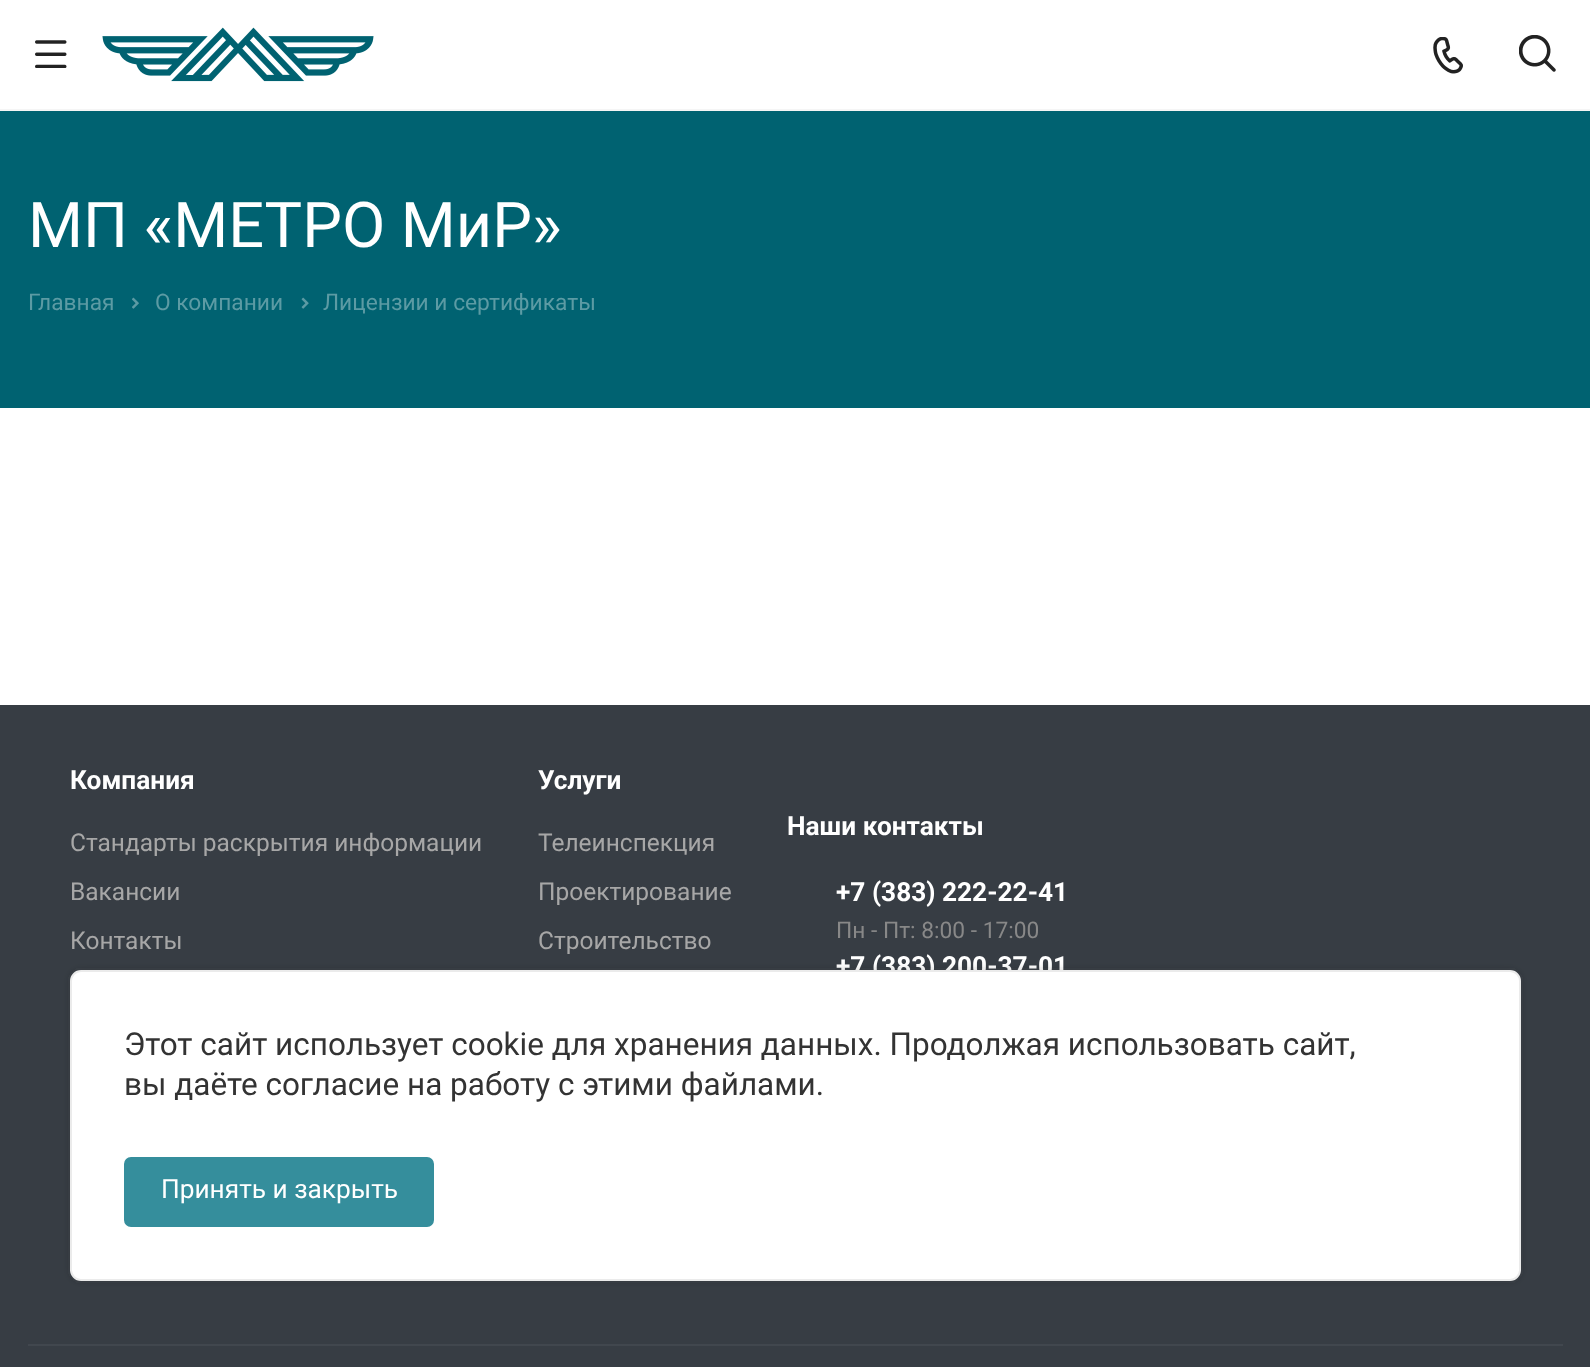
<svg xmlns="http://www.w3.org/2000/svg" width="1590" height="1367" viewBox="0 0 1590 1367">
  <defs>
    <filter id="blur1" x="-50%" y="-200%" width="200%" height="500%"><feGaussianBlur stdDeviation="3.5"/></filter>
  </defs>
  <rect width="100%" height="100%" fill="#ffffff"/>
  <rect x="0" y="109" width="1590" height="2" fill="#f5f5f5"/>
  <image x="35" y="40" width="32" height="28" href="img1.png"/>
  <image x="102" y="27" width="272" height="55" href="img2.png"/>
  <image x="1433" y="37" width="30" height="37" href="img3.png"/>
  <image x="1519" y="35" width="37" height="37" href="img4.png"/>
  <rect x="0" y="111" width="1590" height="297" fill="#006271"/>
  <text x="28" y="247" font-family="Roboto" font-size="63" fill="#ffffff">МП «МЕТРО МиР»</text>
  <text x="28" y="310" font-family="Roboto" font-size="22.75" fill="#5c9ba4">Главная</text>
  <image x="132" y="297" width="7" height="12" href="img5.png"/>
  <text x="155" y="310" font-family="Roboto" font-size="22.75" fill="#5c9ba4">О компании</text>
  <image x="301" y="297" width="8" height="12" href="img6.png"/>
  <text x="323" y="310" font-family="Roboto" font-size="22.75" fill="#5c9ba4">Лицензии и сертификаты</text>
  <rect x="0" y="705" width="1590" height="662" fill="#373d44"/>
  <text x="70" y="789" font-family="Roboto" font-size="26.25" font-weight="bold" fill="#ffffff">Компания</text>
  <text x="70" y="851" font-family="Roboto" font-size="24.5" fill="#a7a7a7">Стандарты раскрытия информации</text>
  <text x="70" y="900" font-family="Roboto" font-size="24.5" fill="#a7a7a7">Вакансии</text>
  <text x="70" y="949" font-family="Roboto" font-size="24.5" fill="#a7a7a7">Контакты</text>
  <text x="538" y="789" font-family="Roboto" font-size="26.25" font-weight="bold" fill="#ffffff">Услуги</text>
  <text x="538" y="851" font-family="Roboto" font-size="24.5" fill="#a7a7a7">Телеинспекция</text>
  <text x="538" y="900" font-family="Roboto" font-size="24.5" fill="#a7a7a7">Проектирование</text>
  <text x="538" y="949" font-family="Roboto" font-size="24.5" fill="#a7a7a7">Строительство</text>
  <text x="787" y="835" font-family="Roboto" font-size="26.25" font-weight="bold" fill="#ffffff">Наши контакты</text>
  <text x="836" y="901" font-family="Roboto" font-size="26.25" font-weight="bold" fill="#ffffff">+7 (383) 222-22-41</text>
  <text x="836" y="938" font-family="Roboto" font-size="22.75" fill="#888888">Пн - Пт: 8:00 - 17:00</text>
  <text x="836" y="975" font-family="Roboto" font-size="26.25" font-weight="bold" fill="#ffffff">+7 (383) 200-37-01</text>
  <rect x="28" y="1344" width="1535" height="2" fill="#41474e"/>
  <rect x="70" y="970" width="1451" height="311" rx="11" fill="#333333" fill-opacity="0.25" filter="url(#blur1)"/>
  <rect x="71" y="971" width="1449" height="309" rx="10" fill="#ffffff" stroke="#ebebeb" stroke-width="2"/>
  <text x="124" y="1055" font-family="Roboto" font-size="31.5" fill="#333333">Этот сайт использует cookie для хранения данных. Продолжая использовать сайт,</text>
  <text x="124" y="1095" font-family="Roboto" font-size="31.5" fill="#333333">вы даёте согласие на работу с этими файлами.</text>
  <rect x="125" y="1158" width="308" height="68" rx="6" fill="#358e9c" stroke="#358e9c" stroke-width="2"/>
  <text x="161" y="1198" font-family="Roboto" font-size="26.25" fill="#ffffff">Принять и закрыть</text>
</svg>
